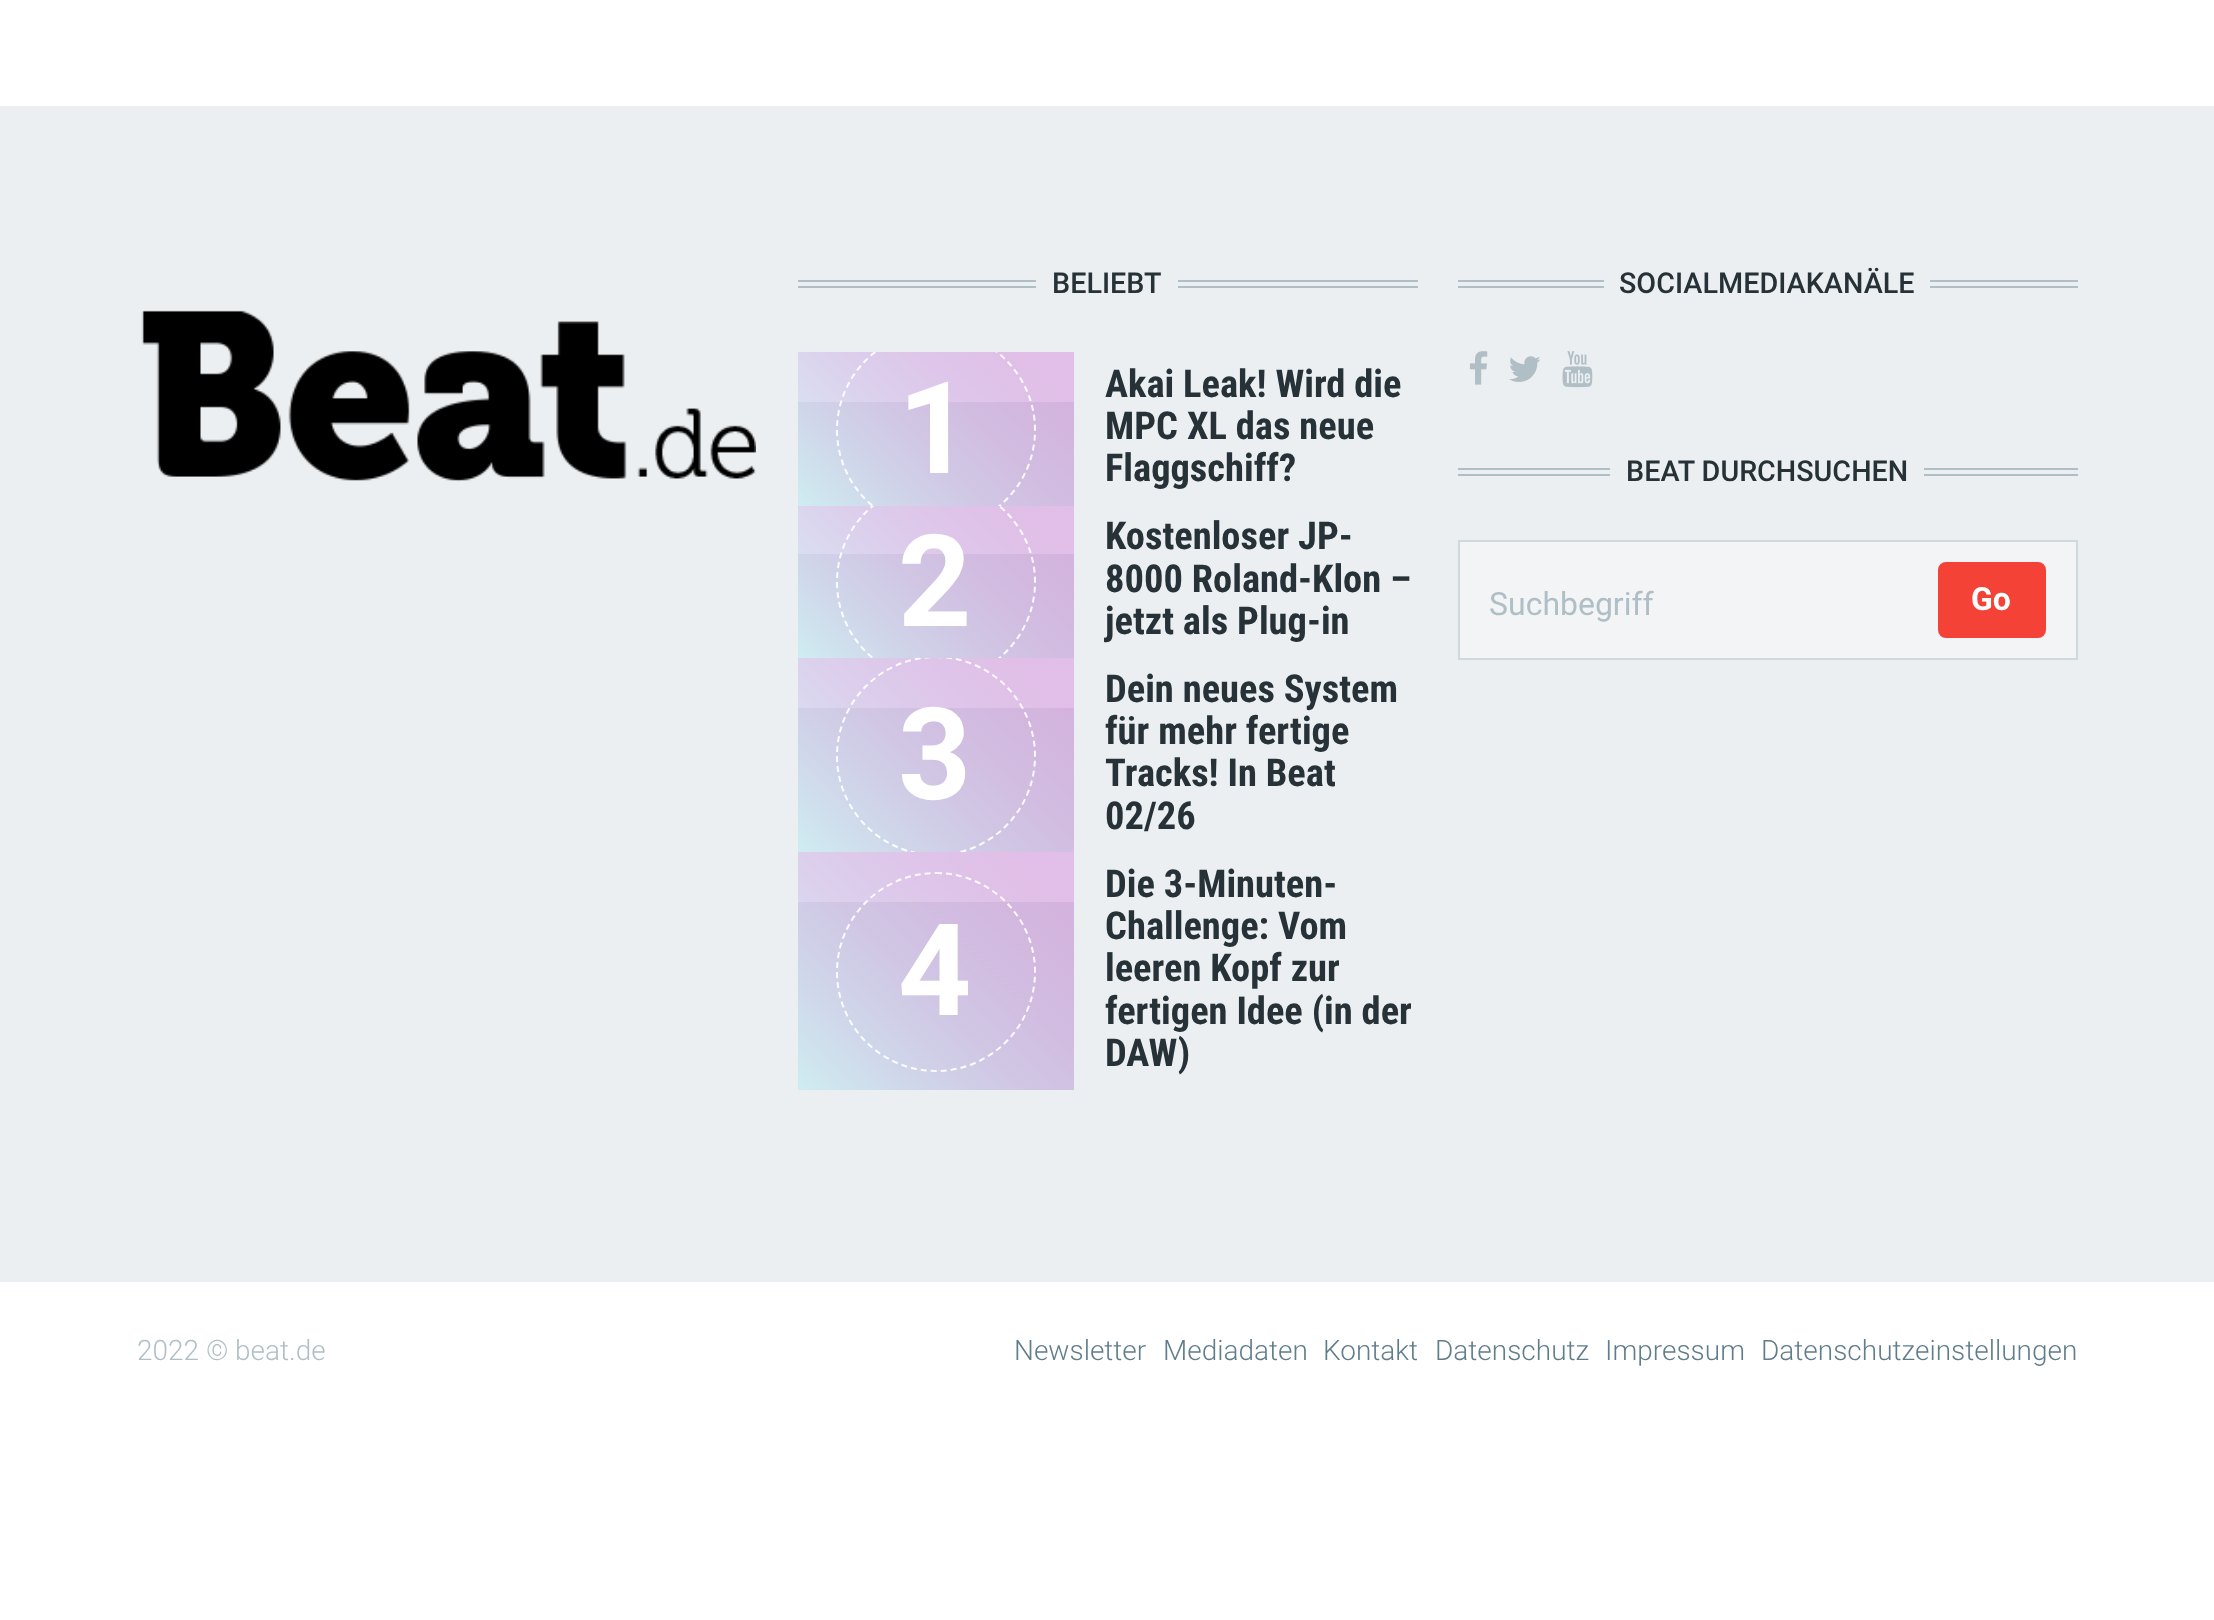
<svg xmlns="http://www.w3.org/2000/svg" width="2214" height="1620" viewBox="0 0 2214 1620">
  <defs>
    <linearGradient id="g1" gradientUnits="userSpaceOnUse" x1="1044" y1="322" x2="829" y2="537"><stop offset="0.1" stop-color="#9c27b0" stop-opacity="0.3"/><stop offset="1" stop-color="#b2ebf2" stop-opacity="0.5"/></linearGradient>
    <clipPath id="clip1"><rect x="798" y="352" width="620" height="154"/></clipPath>
    <linearGradient id="g2" gradientUnits="userSpaceOnUse" x1="1043" y1="475" x2="829" y2="689"><stop offset="0.1" stop-color="#9c27b0" stop-opacity="0.3"/><stop offset="1" stop-color="#b2ebf2" stop-opacity="0.5"/></linearGradient>
    <clipPath id="clip2"><rect x="798" y="506" width="620" height="152"/></clipPath>
    <linearGradient id="g3" gradientUnits="userSpaceOnUse" x1="1054" y1="638" x2="819" y2="873"><stop offset="0.1" stop-color="#9c27b0" stop-opacity="0.3"/><stop offset="1" stop-color="#b2ebf2" stop-opacity="0.5"/></linearGradient>
    <clipPath id="clip3"><rect x="798" y="658" width="620" height="194"/></clipPath>
    <linearGradient id="g4" gradientUnits="userSpaceOnUse" x1="1065" y1="843" x2="808" y2="1100"><stop offset="0.1" stop-color="#9c27b0" stop-opacity="0.3"/><stop offset="1" stop-color="#b2ebf2" stop-opacity="0.5"/></linearGradient>
  </defs>
  <rect width="100%" height="100%" fill="#ffffff"/>
  <rect x="0" y="106" width="2214" height="1176" fill="#eceff1"/>
  <image x="141" y="310" width="615" height="172" href="img1.png"/>
  <rect x="798" y="280" width="620" height="2" fill="#b0bec5"/>
  <rect x="798" y="286" width="620" height="2" fill="#b0bec5"/>
  <rect x="1036" y="280" width="142" height="8" fill="#eceff1"/>
  <text x="1052" y="293" font-family="Roboto" font-size="28.75" font-weight="500" fill="#263238">BELIEBT</text>
  <rect x="798" y="352" width="276" height="50" fill="#ffffff"/>
  <rect x="798" y="352" width="276" height="154" fill="url(#g1)"/>
  <g clip-path="url(#clip1)">
    <path d="M936 331C990.5 331 1035 375.5 1035 430C1035 484.5 990.5 529 936 529C881.5 529 837 484.5 837 430C837 375.5 881.5 331 936 331Z" fill="none" stroke="#ffffff" stroke-opacity="0.9" stroke-width="2" stroke-dasharray="6 4"/>
  </g>
  <text x="898" y="473" font-family="Roboto" font-size="128" font-weight="bold" fill="#ffffff">1</text>
  <text x="1105" y="397" font-family="Roboto Condensed" font-size="38.5" font-weight="bold" fill="#263238">Akai Leak! Wird die</text>
  <text x="1105" y="439" font-family="Roboto Condensed" font-size="38.5" font-weight="bold" fill="#263238">MPC XL das neue</text>
  <text x="1105" y="481" font-family="Roboto Condensed" font-size="38.5" font-weight="bold" fill="#263238">Flaggschiff?</text>
  <rect x="798" y="506" width="276" height="48" fill="#ffffff"/>
  <rect x="798" y="506" width="276" height="152" fill="url(#g2)"/>
  <g clip-path="url(#clip2)">
    <path d="M936 483C990.5 483 1035 527.5 1035 582C1035 636.5 990.5 681 936 681C881.5 681 837 636.5 837 582C837 527.5 881.5 483 936 483Z" fill="none" stroke="#ffffff" stroke-opacity="0.9" stroke-width="2" stroke-dasharray="6 4"/>
  </g>
  <text x="898" y="626" font-family="Roboto" font-size="128" font-weight="bold" fill="#ffffff">2</text>
  <text x="1105" y="549" font-family="Roboto Condensed" font-size="38.5" font-weight="bold" fill="#263238">Kostenloser JP-</text>
  <text x="1105" y="592" font-family="Roboto Condensed" font-size="38.5" font-weight="bold" fill="#263238">8000 Roland-Klon –</text>
  <text x="1105" y="634" font-family="Roboto Condensed" font-size="38.5" font-weight="bold" fill="#263238">jetzt als Plug-in</text>
  <rect x="798" y="658" width="276" height="50" fill="#ffffff"/>
  <rect x="798" y="658" width="276" height="194" fill="url(#g3)"/>
  <g clip-path="url(#clip3)">
    <path d="M936 657C990.5 657 1035 701.5 1035 756C1035 810.5 990.5 855 936 855C881.5 855 837 810.5 837 756C837 701.5 881.5 657 936 657Z" fill="none" stroke="#ffffff" stroke-opacity="0.9" stroke-width="2" stroke-dasharray="6 4"/>
  </g>
  <text x="898" y="799" font-family="Roboto" font-size="128" font-weight="bold" fill="#ffffff">3</text>
  <text x="1105" y="702" font-family="Roboto Condensed" font-size="38.5" font-weight="bold" fill="#263238">Dein neues System</text>
  <text x="1105" y="744" font-family="Roboto Condensed" font-size="38.5" font-weight="bold" fill="#263238">für mehr fertige</text>
  <text x="1105" y="786" font-family="Roboto Condensed" font-size="38.5" font-weight="bold" fill="#263238">Tracks! In Beat</text>
  <text x="1105" y="829" font-family="Roboto Condensed" font-size="38.5" font-weight="bold" fill="#263238">02/26</text>
  <rect x="798" y="852" width="276" height="50" fill="#ffffff"/>
  <rect x="798" y="852" width="276" height="238" fill="url(#g4)"/>
  <path d="M936 873C990.5 873 1035 917.5 1035 972C1035 1026.5 990.5 1071 936 1071C881.5 1071 837 1026.5 837 972C837 917.5 881.5 873 936 873Z" fill="none" stroke="#ffffff" stroke-opacity="0.9" stroke-width="2" stroke-dasharray="6 4"/>
  <text x="898" y="1015" font-family="Roboto" font-size="128" font-weight="bold" fill="#ffffff">4</text>
  <text x="1105" y="897" font-family="Roboto Condensed" font-size="38.5" font-weight="bold" fill="#263238">Die 3-Minuten-</text>
  <text x="1105" y="939" font-family="Roboto Condensed" font-size="38.5" font-weight="bold" fill="#263238">Challenge: Vom</text>
  <text x="1105" y="981" font-family="Roboto Condensed" font-size="38.5" font-weight="bold" fill="#263238">leeren Kopf zur</text>
  <text x="1105" y="1024" font-family="Roboto Condensed" font-size="38.5" font-weight="bold" fill="#263238">fertigen Idee (in der</text>
  <text x="1105" y="1066" font-family="Roboto Condensed" font-size="38.5" font-weight="bold" fill="#263238">DAW)</text>
  <rect x="1458" y="280" width="620" height="2" fill="#b0bec5"/>
  <rect x="1458" y="286" width="620" height="2" fill="#b0bec5"/>
  <rect x="1604" y="280" width="326" height="8" fill="#eceff1"/>
  <text x="1619" y="293" font-family="Roboto" font-size="28.75" font-weight="500" fill="#263238">SOCIALMEDIAKANÄLE</text>
  <image x="1469" y="351" width="19" height="34" href="img2.png"/>
  <image x="1509" y="356" width="32" height="26" href="img3.png"/>
  <image x="1562" y="351" width="31" height="37" href="img4.png"/>
  <rect x="1458" y="468" width="620" height="2" fill="#b0bec5"/>
  <rect x="1458" y="474" width="620" height="2" fill="#b0bec5"/>
  <rect x="1610" y="468" width="314" height="8" fill="#eceff1"/>
  <text x="1626" y="481" font-family="Roboto" font-size="28.75" font-weight="500" fill="#263238">BEAT DURCHSUCHEN</text>
  <rect x="1459" y="541" width="618" height="118" fill="#f2f4f5" stroke="#cfd8dc" stroke-width="2"/>
  <text x="1489" y="615" font-family="Roboto" font-size="32" fill="#b0bec5">Suchbegriff</text>
  <rect x="1939" y="563" width="106" height="74" rx="7" fill="#f44336" stroke="#f44336" stroke-width="2"/>
  <text x="1971" y="610" font-family="Roboto" font-size="32" font-weight="bold" fill="#ffffff">Go</text>
  <text x="137" y="1360" font-family="Roboto" font-size="28" font-weight="300" fill="#b0bec5">2022 © beat.de</text>
  <text x="1014" y="1360" font-family="Roboto" font-size="28" font-weight="300" fill="#607d8b">Newsletter</text>
  <text x="1163" y="1360" font-family="Roboto" font-size="28" font-weight="300" fill="#607d8b">Mediadaten</text>
  <text x="1323" y="1360" font-family="Roboto" font-size="28" font-weight="300" fill="#607d8b">Kontakt</text>
  <text x="1435" y="1360" font-family="Roboto" font-size="28" font-weight="300" fill="#607d8b">Datenschutz</text>
  <text x="1605" y="1360" font-family="Roboto" font-size="28" font-weight="300" fill="#607d8b">Impressum</text>
  <text x="1761" y="1360" font-family="Roboto" font-size="28" font-weight="300" fill="#607d8b">Datenschutzeinstellungen</text>
</svg>
